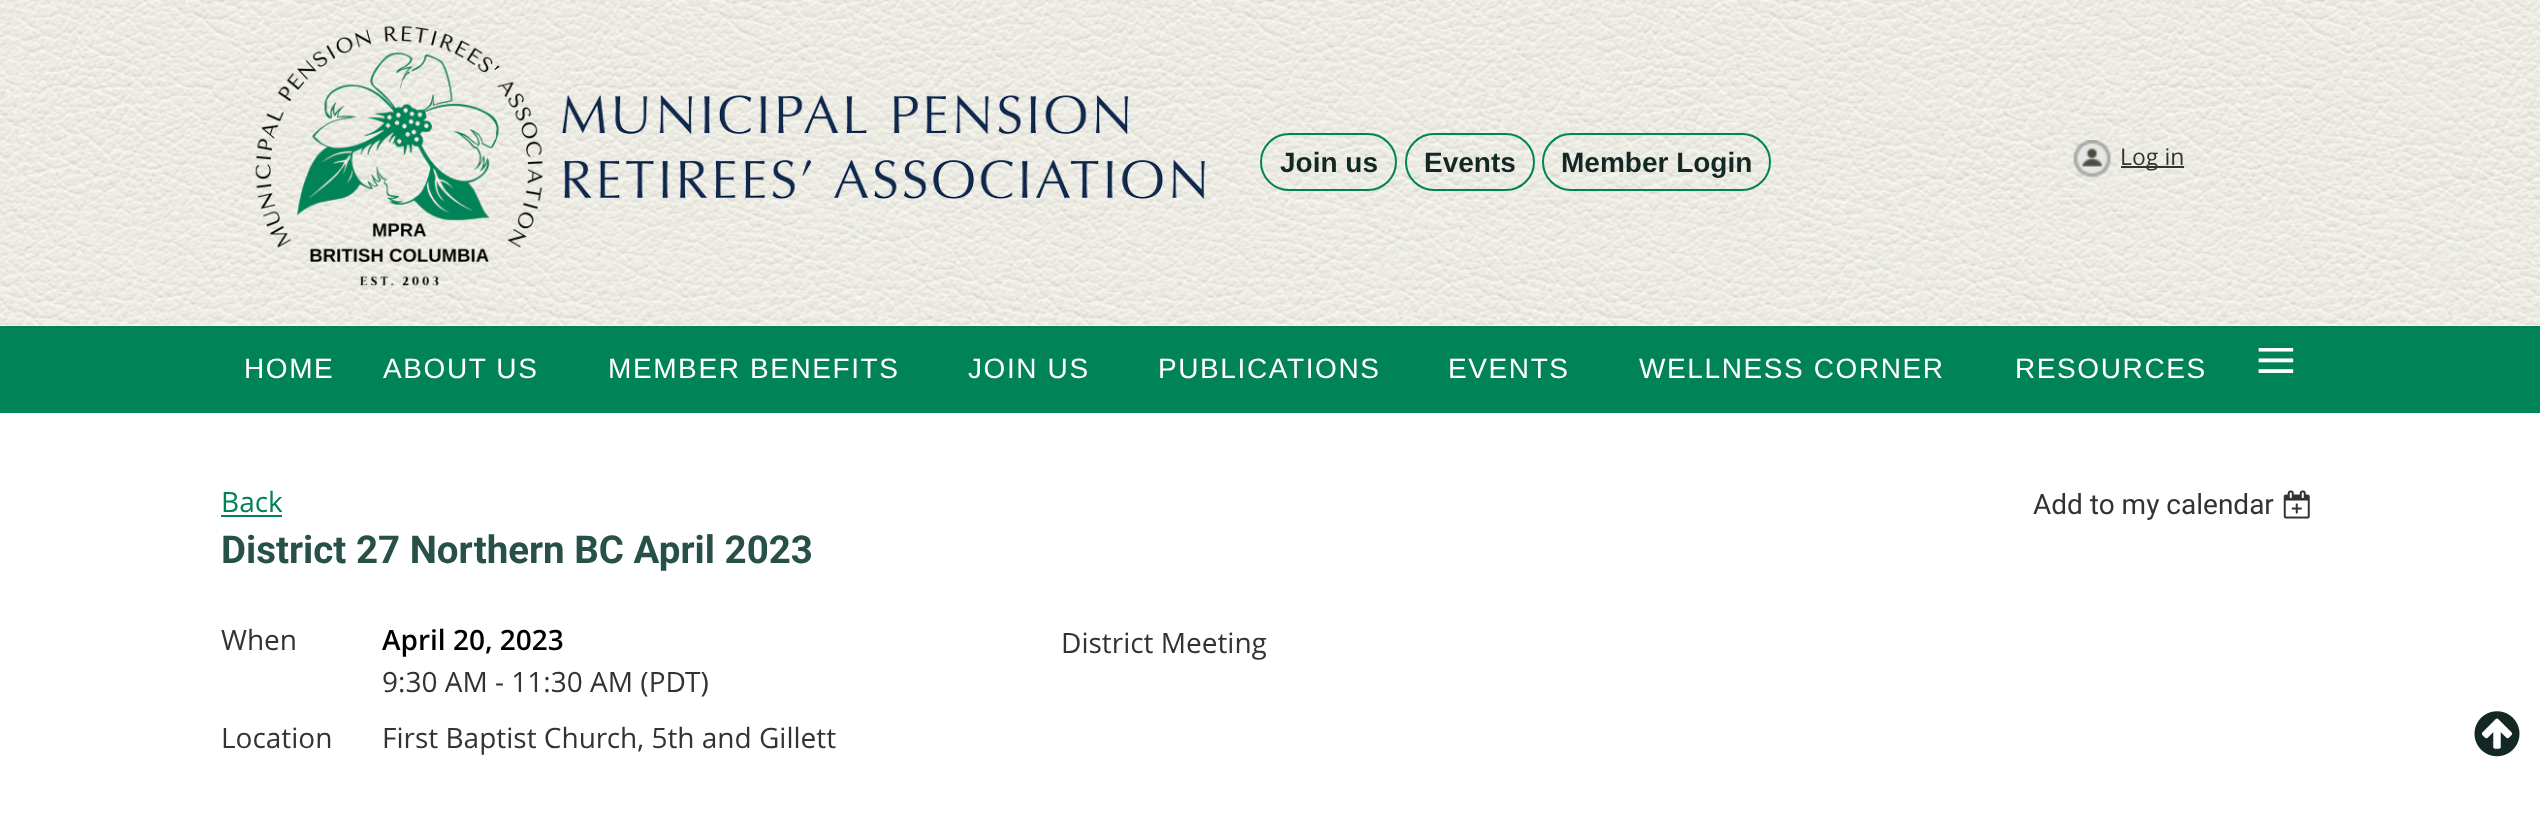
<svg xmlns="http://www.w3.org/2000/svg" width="2540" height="820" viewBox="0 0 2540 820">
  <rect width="100%" height="100%" fill="#ffffff"/>
  <image x="0" y="0" width="2540" height="326" href="img1.png"/>
  <image x="255" y="26" width="950" height="260" href="img2.png"/>
  <rect x="1261" y="134" width="135" height="56" rx="28" fill="none" stroke="#008357" stroke-width="2"/>
  <text x="1280" y="172" font-family="Liberation Sans" font-size="28" font-weight="bold" fill="#132824">Join us</text>
  <rect x="1406" y="134" width="128" height="56" rx="28" fill="none" stroke="#008357" stroke-width="2"/>
  <text x="1424" y="172" font-family="Liberation Sans" font-size="28" font-weight="bold" fill="#132824">Events</text>
  <rect x="1543" y="134" width="227" height="56" rx="28" fill="none" stroke="#008357" stroke-width="2"/>
  <text x="1561" y="172" font-family="Liberation Sans" font-size="28" font-weight="bold" fill="#132824">Member Login</text>
  <image x="2073" y="140" width="38" height="38" href="img3.png"/>
  <rect x="2121" y="166" width="63" height="2" fill="#333333"/>
  <text x="2120" y="165" font-family="Open Sans" font-size="23" fill="#333333">Log in</text>
  <rect x="0" y="326" width="2540" height="87" fill="#008356"/>
  <text x="244" y="378" font-family="Liberation Sans" font-size="28" letter-spacing="1.6" fill="#ffffff">HOME</text>
  <text x="383" y="378" font-family="Liberation Sans" font-size="28" letter-spacing="1.6" fill="#ffffff">ABOUT US</text>
  <text x="608" y="378" font-family="Liberation Sans" font-size="28" letter-spacing="1.6" fill="#ffffff">MEMBER BENEFITS</text>
  <text x="968" y="378" font-family="Liberation Sans" font-size="28" letter-spacing="1.6" fill="#ffffff">JOIN US</text>
  <text x="1158" y="378" font-family="Liberation Sans" font-size="28" letter-spacing="1.6" fill="#ffffff">PUBLICATIONS</text>
  <text x="1448" y="378" font-family="Liberation Sans" font-size="28" letter-spacing="1.6" fill="#ffffff">EVENTS</text>
  <text x="1639" y="378" font-family="Liberation Sans" font-size="28" letter-spacing="1.6" fill="#ffffff">WELLNESS CORNER</text>
  <text x="2015" y="378" font-family="Liberation Sans" font-size="28" letter-spacing="1.6" fill="#ffffff">RESOURCES</text>
  <text x="2255" y="385" font-family="Liberation Serif" font-size="74" letter-spacing="1.6" fill="#ffffff">≡</text>
  <text x="221" y="512" font-family="Open Sans" font-size="28" fill="#008356">Back</text>
  <rect x="221" y="515" width="61" height="2" fill="#008356"/>
  <text x="2033" y="514" font-family="Roboto" font-size="28" fill="#333333">Add to my calendar</text>
  <image x="2283" y="490" width="27" height="29" href="img4.png"/>
  <text x="221" y="563" font-family="Roboto" font-size="38.5" font-weight="bold" fill="#275148">District 27 Northern BC April 2023</text>
  <text x="221" y="650" font-family="Open Sans" font-size="28" fill="#333333">When</text>
  <text x="382" y="650" font-family="Open Sans" font-size="28" font-weight="600" fill="#000000">April 20, 2023</text>
  <text x="382" y="692" font-family="Open Sans" font-size="28" fill="#333333">9:30 AM - 11:30 AM (PDT)</text>
  <text x="221" y="748" font-family="Open Sans" font-size="28" fill="#333333">Location</text>
  <text x="382" y="748" font-family="Open Sans" font-size="28" fill="#333333">First Baptist Church, 5th and Gillett</text>
  <text x="1061" y="653" font-family="Open Sans" font-size="28" fill="#333333">District Meeting</text>
  <image x="2474" y="711" width="46" height="46" href="img5.png"/>
</svg>
